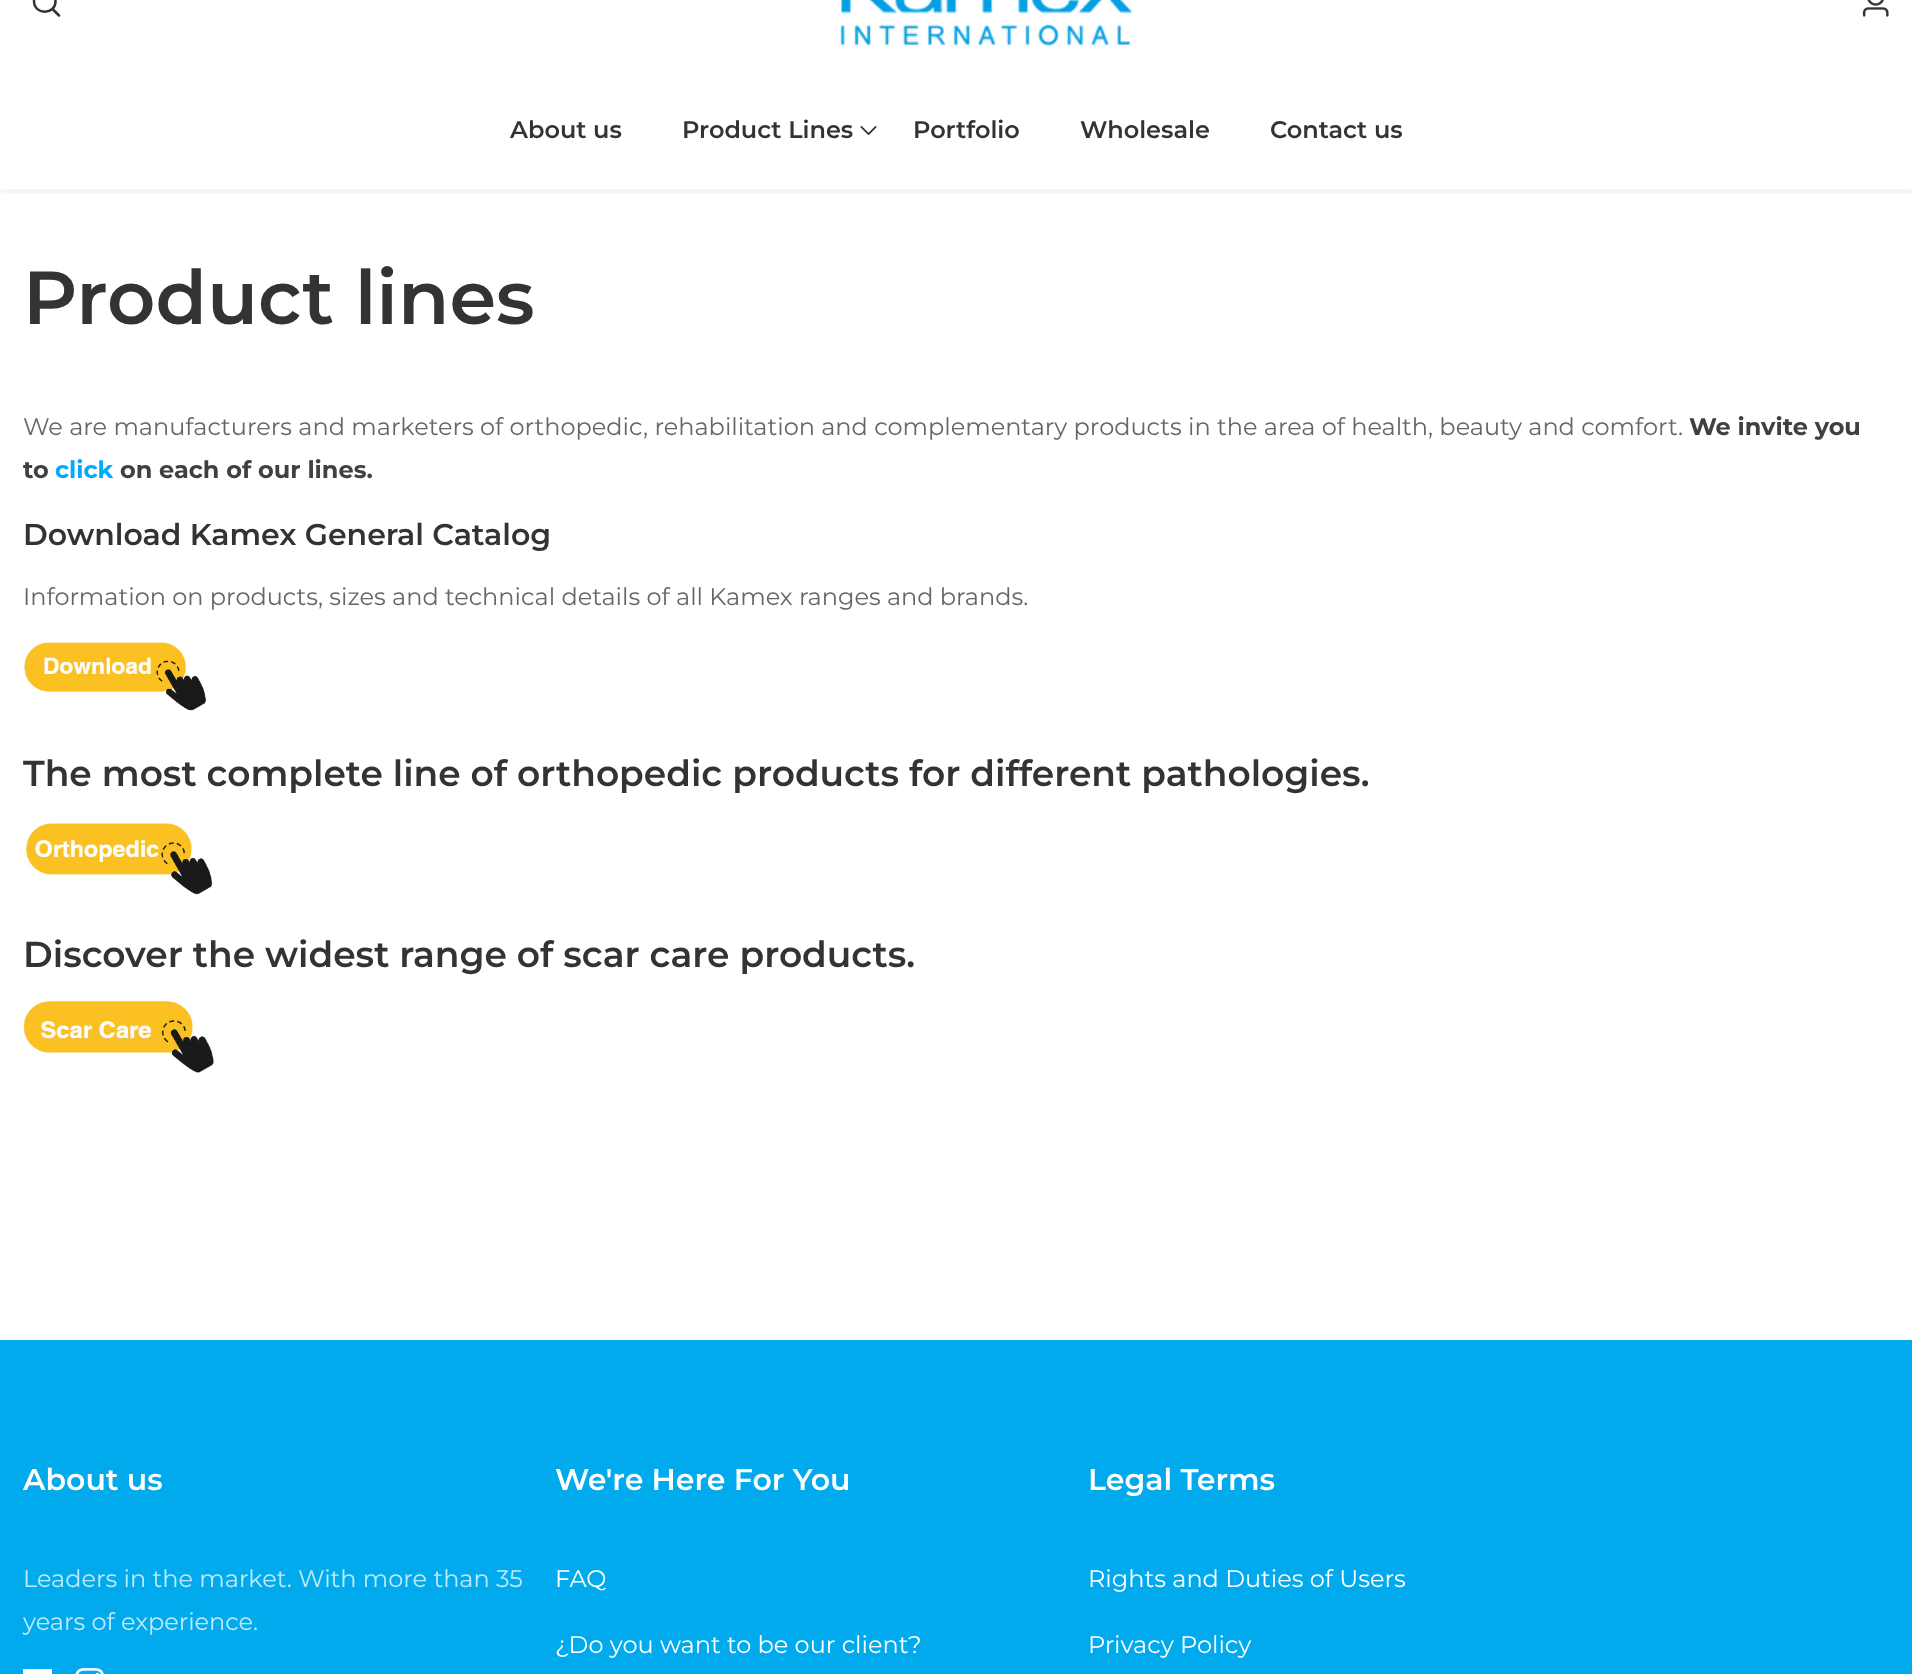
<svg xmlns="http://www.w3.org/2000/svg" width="1912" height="1674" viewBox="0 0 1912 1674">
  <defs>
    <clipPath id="clip1"><rect x="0" y="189" width="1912" height="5"/></clipPath>
    <filter id="blur1" x="-50%" y="-200%" width="200%" height="500%"><feGaussianBlur stdDeviation="4"/></filter>
  </defs>
  <rect width="100%" height="100%" fill="#ffffff"/>
  <g clip-path="url(#clip1)">
    <rect x="0" y="-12" width="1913" height="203" fill="#333333" fill-opacity="0.1" filter="url(#blur1)"/>
  </g>
  <path d="M53 9.5L59 15.5M34 1C34 15.5 56 15 55.5 1C55-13 34-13 34 1Z" fill="none" stroke="#333333" stroke-width="2.5" stroke-linecap="round" stroke-linejoin="round"/>
  <image x="840" y="0" width="293" height="47" href="img1.png"/>
  <image x="1862" y="0" width="27" height="17" href="img2.png"/>
  <text x="510" y="138" font-family="Montserrat" font-size="24" font-weight="600" fill="#333333">About us</text>
  <text x="682" y="138" font-family="Montserrat" font-size="24" font-weight="600" fill="#333333">Product Lines</text>
  <image x="860" y="126" width="17" height="9" href="img3.png"/>
  <text x="913" y="138" font-family="Montserrat" font-size="24" font-weight="600" fill="#333333">Portfolio</text>
  <text x="1080" y="138" font-family="Montserrat" font-size="24" font-weight="600" fill="#333333">Wholesale</text>
  <text x="1270" y="138" font-family="Montserrat" font-size="24" font-weight="600" fill="#333333">Contact us</text>
  <text x="23" y="324" font-family="Montserrat" font-size="75" font-weight="600" fill="#333333">Product lines</text>
  <text x="23" y="435" font-family="Montserrat" font-size="24" fill="#666666">We are manufacturers and marketers of orthopedic, rehabilitation and complementary products in the area of health, beauty and comfort.</text>
  <text x="1689" y="435" font-family="Montserrat" font-size="24" font-weight="bold" fill="#404040">We invite you</text>
  <text x="23" y="478" font-family="Montserrat" font-size="24" font-weight="bold" fill="#404040">to</text>
  <text x="55" y="478" font-family="Montserrat" font-size="24" font-weight="bold" fill="#00aaff">click</text>
  <text x="120" y="478" font-family="Montserrat" font-size="24" font-weight="bold" fill="#404040">on each of our lines.</text>
  <text x="23" y="545" font-family="Montserrat" font-size="30" font-weight="600" fill="#333333">Download Kamex General Catalog</text>
  <text x="23" y="605" font-family="Montserrat" font-size="24" fill="#666666">Information on products, sizes and technical details of all Kamex ranges and brands.</text>
  <image x="22" y="641" width="185" height="70" href="img4.png"/>
  <text x="23" y="786" font-family="Montserrat" font-size="36" font-weight="600" fill="#333333">The most complete line of orthopedic products for different pathologies.</text>
  <image x="22" y="823" width="191" height="72" href="img5.png"/>
  <text x="23" y="967" font-family="Montserrat" font-size="36" font-weight="600" fill="#333333">Discover the widest range of scar care products.</text>
  <image x="23" y="1000" width="191" height="73" href="img6.png"/>
  <rect x="0" y="1340" width="1912" height="334" fill="#00aaec"/>
  <text x="23" y="1490" font-family="Montserrat" font-size="30" font-weight="600" fill="#ffffff">About us</text>
  <text x="23" y="1587" font-family="Montserrat" font-size="24" fill="#bfeafa">Leaders in the market. With more than 35</text>
  <text x="23" y="1630" font-family="Montserrat" font-size="24" fill="#bfeafa">years of experience.</text>
  <rect x="23" y="1669" width="29" height="5" fill="#ffffff"/>
  <image x="75" y="1668" width="29" height="6" href="img7.png"/>
  <text x="555" y="1490" font-family="Montserrat" font-size="30" font-weight="600" fill="#ffffff">We're Here For You</text>
  <text x="555" y="1587" font-family="Montserrat" font-size="24" fill="#ffffff">FAQ</text>
  <text x="555" y="1653" font-family="Montserrat" font-size="24" fill="#ffffff">¿Do you want to be our client?</text>
  <text x="1088" y="1490" font-family="Montserrat" font-size="30" font-weight="600" fill="#ffffff">Legal Terms</text>
  <text x="1088" y="1587" font-family="Montserrat" font-size="24" fill="#ffffff">Rights and Duties of Users</text>
  <text x="1088" y="1653" font-family="Montserrat" font-size="24" fill="#ffffff">Privacy Policy</text>
</svg>
